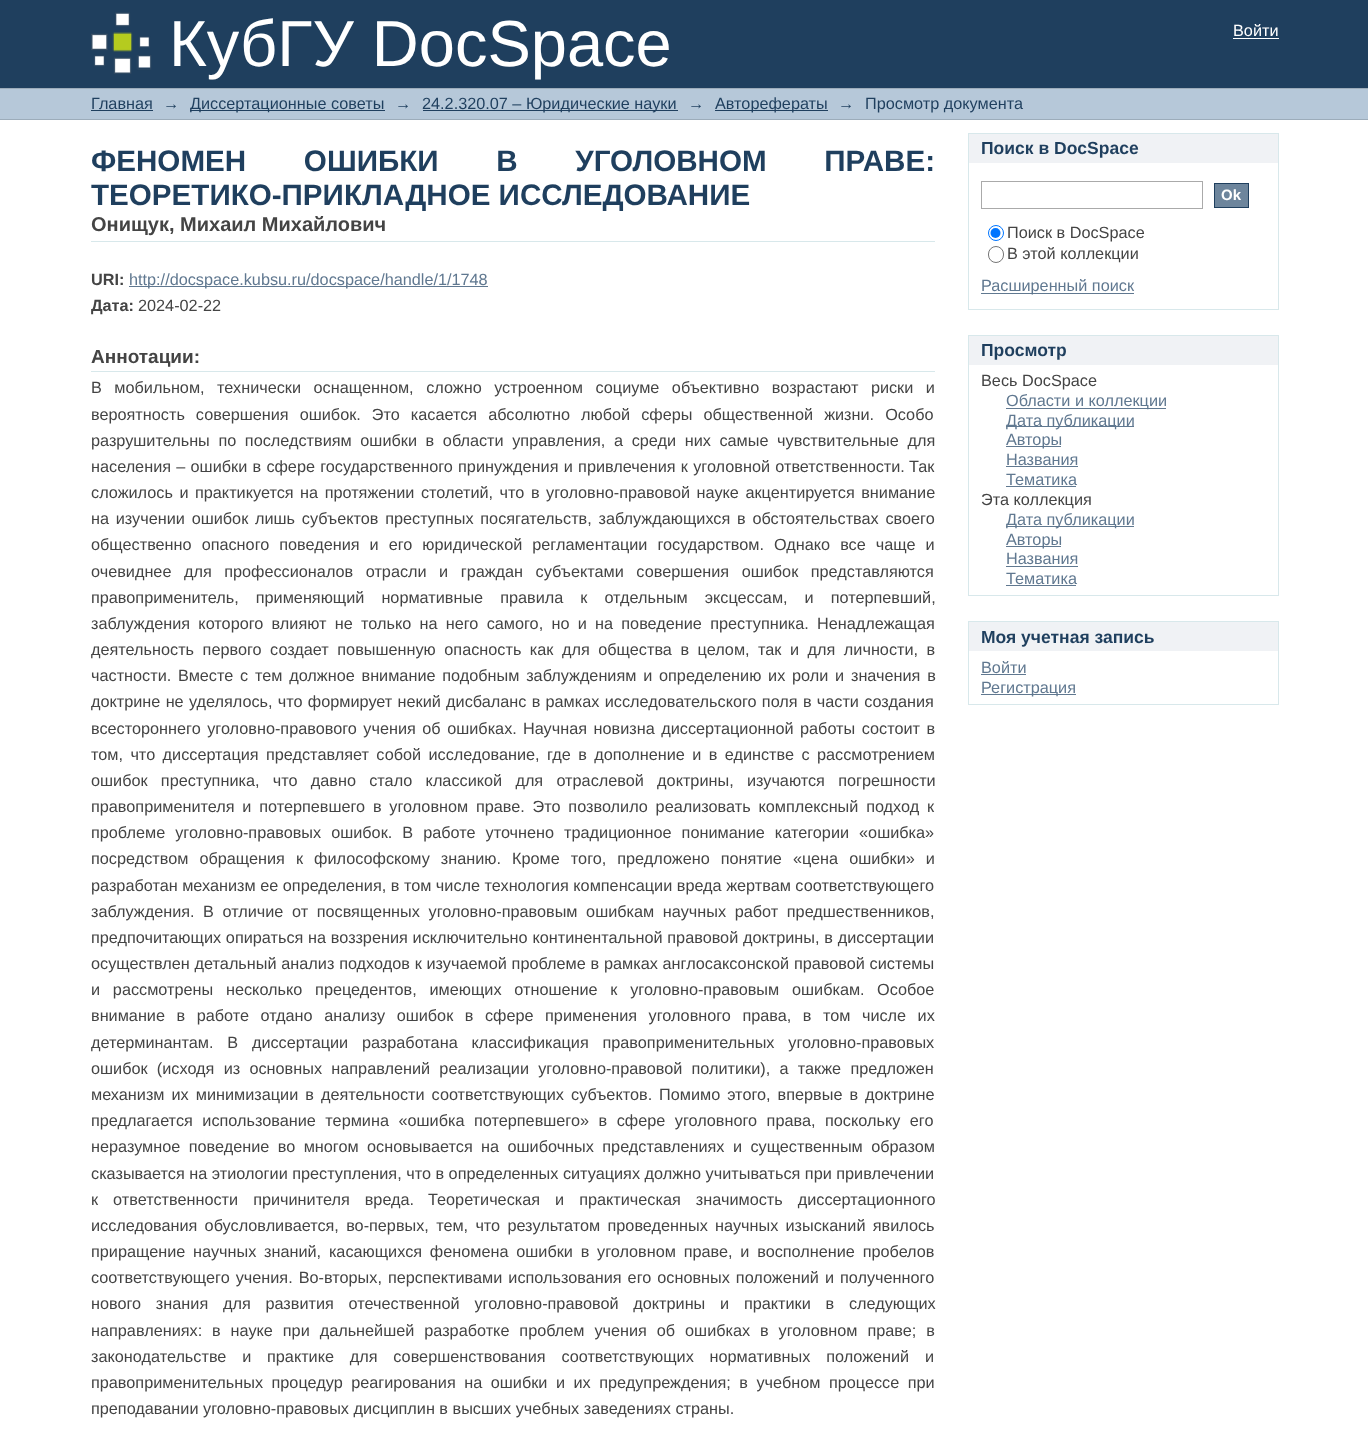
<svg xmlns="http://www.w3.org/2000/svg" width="1368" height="1433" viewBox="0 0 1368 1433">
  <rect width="100%" height="100%" fill="#ffffff"/>
  <rect x="0" y="0" width="1368" height="88" fill="#1f3f5e"/>
  <image x="91" y="12" width="61" height="62" href="img1.png"/>
  <text x="169" y="66" font-family="Liberation Sans" font-size="65" fill="#ffffff">КубГУ DocSpace</text>
  <text x="1233" y="36" font-family="Liberation Sans" font-size="16.25" fill="#ffffff">Войти</text>
  <rect x="1233" y="38" width="46" height="1" fill="#ffffff"/>
  <rect x="0" y="89" width="1368" height="30" fill="#b6c8d9"/>
  <rect x="0" y="88" width="1368" height="1" fill="#9cacba"/>
  <rect x="0" y="119" width="1368" height="1" fill="#9cacba"/>
  <text x="91" y="109" font-family="Liberation Sans" font-size="16.25" fill="#1f3f5e">Главная</text>
  <rect x="91" y="110" width="62" height="1" fill="#1f3f5e"/>
  <text x="163" y="109" font-family="Liberation Sans" font-size="16.25" fill="#1f3f5e">→</text>
  <rect x="190" y="110" width="195" height="1" fill="#1f3f5e"/>
  <text x="190" y="109" font-family="Liberation Sans" font-size="16.25" fill="#1f3f5e">Диссертационные советы</text>
  <text x="395" y="109" font-family="Liberation Sans" font-size="16.25" fill="#1f3f5e">→</text>
  <rect x="423" y="110" width="255" height="1" fill="#1f3f5e"/>
  <text x="422" y="109" font-family="Liberation Sans" font-size="16.25" fill="#1f3f5e">24.2.320.07 – Юридические науки</text>
  <text x="688" y="109" font-family="Liberation Sans" font-size="16.25" fill="#1f3f5e">→</text>
  <rect x="715" y="110" width="113" height="1" fill="#1f3f5e"/>
  <text x="715" y="109" font-family="Liberation Sans" font-size="16.25" fill="#1f3f5e">Авторефераты</text>
  <text x="838" y="109" font-family="Liberation Sans" font-size="16.25" fill="#1f3f5e">→</text>
  <text x="865" y="109" font-family="Liberation Sans" font-size="16.25" fill="#1f3f5e">Просмотр документа</text>
  <text x="91" y="171" word-spacing="49.5" font-family="Liberation Sans" font-size="29.6" font-weight="bold" fill="#1f3f5e">ФЕНОМЕН ОШИБКИ В УГОЛОВНОМ ПРАВЕ:</text>
  <text x="91" y="205" font-family="Liberation Sans" font-size="29.6" font-weight="bold" fill="#1f3f5e">ТЕОРЕТИКО-ПРИКЛАДНОЕ ИССЛЕДОВАНИЕ</text>
  <rect x="91" y="241" width="844" height="1" fill="#d8e8eb"/>
  <text x="91" y="231" font-family="Liberation Sans" font-size="20" font-weight="bold" fill="#444444">Онищук, Михаил Михайлович</text>
  <text x="91" y="285" font-family="Liberation Sans" font-size="16.25" font-weight="bold" fill="#444444">URI:</text>
  <rect x="129" y="286" width="359" height="1" fill="#607890"/>
  <text x="129" y="285" font-family="Liberation Sans" font-size="16.25" fill="#607890">http://docspace.kubsu.ru/docspace/handle/1/1748</text>
  <text x="91" y="311" font-family="Liberation Sans" font-size="16.25" font-weight="bold" fill="#444444">Дата:</text>
  <text x="138" y="311" font-family="Liberation Sans" font-size="16.25" fill="#444444">2024-02-22</text>
  <rect x="91" y="371" width="844" height="1" fill="#d8e8eb"/>
  <text x="91" y="363" font-family="Liberation Sans" font-size="19" font-weight="bold" fill="#444444">Аннотации:</text>
  <text x="91" y="393" word-spacing="8" font-family="Liberation Sans" font-size="16.25" fill="#444444">В мобильном, технически оснащенном, сложно устроенном социуме объективно возрастают риски и</text>
  <text x="91" y="420" word-spacing="6.5" font-family="Liberation Sans" font-size="16.25" fill="#444444">вероятность совершения ошибок. Это касается абсолютно любой сферы общественной жизни. Особо</text>
  <text x="91" y="446" word-spacing="4.1" font-family="Liberation Sans" font-size="16.25" fill="#444444">разрушительны по последствиям ошибки в области управления, а среди них самые чувствительные для</text>
  <text x="91" y="472" word-spacing="0.75" font-family="Liberation Sans" font-size="16.25" fill="#444444">населения – ошибки в сфере государственного принуждения и привлечения к уголовной ответственности.</text>
  <text x="909" y="472" font-family="Liberation Sans" font-size="16.25" fill="#444444">Так</text>
  <text x="91" y="498" word-spacing="2" font-family="Liberation Sans" font-size="16.25" fill="#444444">сложилось и практикуется на протяжении столетий, что в уголовно-правовой науке акцентируется внимание</text>
  <text x="91" y="524" word-spacing="2.25" font-family="Liberation Sans" font-size="16.25" fill="#444444">на изучении ошибок лишь субъектов преступных посягательств, заблуждающихся в обстоятельствах своего</text>
  <text x="91" y="550" word-spacing="5.5" font-family="Liberation Sans" font-size="16.25" fill="#444444">общественно опасного поведения и его юридической регламентации государством. Однако все чаще и</text>
  <text x="91" y="577" word-spacing="8" font-family="Liberation Sans" font-size="16.25" fill="#444444">очевиднее для профессионалов отрасли и граждан субъектами совершения ошибок представляются</text>
  <text x="91" y="603" word-spacing="12.5" font-family="Liberation Sans" font-size="16.25" fill="#444444">правоприменитель, применяющий нормативные правила к отдельным эксцессам, и потерпевший,</text>
  <text x="91" y="629" word-spacing="3.75" font-family="Liberation Sans" font-size="16.25" fill="#444444">заблуждения которого влияют не только на него самого, но и на поведение преступника. Ненадлежащая</text>
  <text x="91" y="655" word-spacing="4" font-family="Liberation Sans" font-size="16.25" fill="#444444">деятельность первого создает повышенную опасность как для общества в целом, так и для личности, в</text>
  <text x="91" y="681" word-spacing="2.25" font-family="Liberation Sans" font-size="16.25" fill="#444444">частности. Вместе с тем должное внимание подобным заблуждениям и определению их роли и значения в</text>
  <text x="91" y="707" word-spacing="0.75" font-family="Liberation Sans" font-size="16.25" fill="#444444">доктрине не уделялось, что формирует некий дисбаланс в рамках исследовательского поля в части создания</text>
  <text x="91" y="734" word-spacing="2" font-family="Liberation Sans" font-size="16.25" fill="#444444">всестороннего уголовно-правового учения об ошибках.</text>
  <text x="523" y="734" word-spacing="2" font-family="Liberation Sans" font-size="16.25" fill="#444444">Научная новизна диссертационной работы состоит в</text>
  <text x="91" y="760" word-spacing="2.9" font-family="Liberation Sans" font-size="16.25" fill="#444444">том, что диссертация представляет собой исследование, где в дополнение и в единстве с рассмотрением</text>
  <text x="91" y="786" word-spacing="8.75" font-family="Liberation Sans" font-size="16.25" fill="#444444">ошибок преступника, что давно стало классикой для отраслевой доктрины, изучаются погрешности</text>
  <text x="91" y="812" word-spacing="3.25" font-family="Liberation Sans" font-size="16.25" fill="#444444">правоприменителя и потерпевшего в уголовном праве. Это позволило реализовать комплексный подход к</text>
  <text x="91" y="838" word-spacing="5.5" font-family="Liberation Sans" font-size="16.25" fill="#444444">проблеме уголовно-правовых ошибок. В работе уточнено традиционное понимание категории «ошибка»</text>
  <text x="91" y="864" word-spacing="6.5" font-family="Liberation Sans" font-size="16.25" fill="#444444">посредством обращения к философскому знанию. Кроме того, предложено понятие «цена ошибки» и</text>
  <text x="91" y="891" font-family="Liberation Sans" font-size="16.25" fill="#444444">разработан механизм ее определения, в том числе технология компенсации вреда жертвам соответствующего</text>
  <text x="91" y="917" font-family="Liberation Sans" font-size="16.25" fill="#444444">заблуждения.</text>
  <text x="203" y="917" word-spacing="4.1" font-family="Liberation Sans" font-size="16.25" fill="#444444">В отличие от посвященных уголовно-правовым ошибкам научных работ предшественников,</text>
  <text x="91" y="943" word-spacing="0.25" font-family="Liberation Sans" font-size="16.25" fill="#444444">предпочитающих опираться на воззрения исключительно континентальной правовой доктрины, в диссертации</text>
  <text x="91" y="969" word-spacing="0.25" font-family="Liberation Sans" font-size="16.25" fill="#444444">осуществлен детальный анализ подходов к изучаемой проблеме в рамках англосаксонской правовой системы</text>
  <text x="91" y="995" word-spacing="8.25" font-family="Liberation Sans" font-size="16.25" fill="#444444">и рассмотрены несколько прецедентов, имеющих отношение к уголовно-правовым ошибкам.</text>
  <text x="877" y="995" font-family="Liberation Sans" font-size="16.25" fill="#444444">Особое</text>
  <text x="91" y="1021" word-spacing="7" font-family="Liberation Sans" font-size="16.25" fill="#444444">внимание в работе отдано анализу ошибок в сфере применения уголовного права, в том числе их</text>
  <text x="91" y="1048" word-spacing="9.25" font-family="Liberation Sans" font-size="16.25" fill="#444444">детерминантам. В диссертации разработана классификация правоприменительных уголовно-правовых</text>
  <text x="91" y="1074" word-spacing="4.75" font-family="Liberation Sans" font-size="16.25" fill="#444444">ошибок (исходя из основных направлений реализации уголовно-правовой политики), а также предложен</text>
  <text x="91" y="1100" word-spacing="2.5" font-family="Liberation Sans" font-size="16.25" fill="#444444">механизм их минимизации в деятельности соответствующих субъектов.</text>
  <text x="659" y="1100" word-spacing="2.5" font-family="Liberation Sans" font-size="16.25" fill="#444444">Помимо этого, впервые в доктрине</text>
  <text x="91" y="1126" word-spacing="5" font-family="Liberation Sans" font-size="16.25" fill="#444444">предлагается использование термина «ошибка потерпевшего» в сфере уголовного права, поскольку его</text>
  <text x="91" y="1152" word-spacing="3.9" font-family="Liberation Sans" font-size="16.25" fill="#444444">неразумное поведение во многом основывается на ошибочных представлениях и существенным образом</text>
  <text x="91" y="1179" font-family="Liberation Sans" font-size="16.25" fill="#444444">сказывается на этиологии преступления, что в определенных ситуациях должно учитываться при привлечении</text>
  <text x="91" y="1205" word-spacing="10.5" font-family="Liberation Sans" font-size="16.25" fill="#444444">к ответственности причинителя вреда.</text>
  <text x="428" y="1205" word-spacing="10.5" font-family="Liberation Sans" font-size="16.25" fill="#444444">Теоретическая и практическая значимость диссертационного</text>
  <text x="91" y="1231" word-spacing="2.75" font-family="Liberation Sans" font-size="16.25" fill="#444444">исследования обусловливается, во-первых, тем, что результатом проведенных научных изысканий явилось</text>
  <text x="91" y="1257" word-spacing="3.25" font-family="Liberation Sans" font-size="16.25" fill="#444444">приращение научных знаний, касающихся феномена ошибки в уголовном праве, и восполнение пробелов</text>
  <text x="91" y="1283" word-spacing="1.5" font-family="Liberation Sans" font-size="16.25" fill="#444444">соответствующего учения. Во-вторых, перспективами использования его основных положений и полученного</text>
  <text x="91" y="1309" word-spacing="10.25" font-family="Liberation Sans" font-size="16.25" fill="#444444">нового знания для развития отечественной уголовно-правовой доктрины и практики в следующих</text>
  <text x="91" y="1336" word-spacing="5.4" font-family="Liberation Sans" font-size="16.25" fill="#444444">направлениях: в науке при дальнейшей разработке проблем учения об ошибках в уголовном праве; в</text>
  <text x="91" y="1362" word-spacing="11.25" font-family="Liberation Sans" font-size="16.25" fill="#444444">законодательстве и практике для совершенствования соответствующих нормативных положений и</text>
  <text x="91" y="1388" word-spacing="4" font-family="Liberation Sans" font-size="16.25" fill="#444444">правоприменительных процедур реагирования на ошибки и их предупреждения; в учебном процессе при</text>
  <text x="91" y="1414" font-family="Liberation Sans" font-size="16.25" fill="#444444">преподавании уголовно-правовых дисциплин в высших учебных заведениях страны.</text>
  <rect x="969" y="134" width="309" height="29" fill="#f0f2f5"/>
  <rect x="968" y="133" width="311" height="1" fill="#d8e8eb"/>
  <rect x="1278" y="133" width="1" height="177" fill="#d8e8eb"/>
  <rect x="968" y="133" width="1" height="30" fill="#d8e8eb"/>
  <text x="981" y="154" font-family="Liberation Sans" font-size="17.5" font-weight="bold" fill="#1f3f5e">Поиск в DocSpace</text>
  <rect x="968" y="309" width="311" height="1" fill="#d8e8eb"/>
  <rect x="968" y="163" width="1" height="147" fill="#d8e8eb"/>
  <rect x="981.5" y="181.5" width="221" height="27" fill="none" stroke="#aaaaaa"/>
  <rect x="1214.5" y="183.5" width="34" height="24" fill="#6d859c" stroke="#1f3f5e"/>
  <text x="1221" y="200" font-family="Liberation Sans" font-size="15" font-weight="bold" fill="#ffffff">Ok</text>
  <circle cx="996" cy="233" r="7.5" fill="none" stroke="#0075ff"/>
  <circle cx="995.5" cy="233" r="5" fill="#0075ff"/>
  <text x="1007" y="238" font-family="Liberation Sans" font-size="16.25" fill="#444444">Поиск в DocSpace</text>
  <rect x="988.5" y="246.5" width="15" height="16" rx="7.5" fill="none" stroke="#767676"/>
  <text x="1007" y="259" font-family="Liberation Sans" font-size="16.25" fill="#444444">В этой коллекции</text>
  <rect x="981" y="293" width="153" height="1" fill="#607890"/>
  <text x="981" y="291" font-family="Liberation Sans" font-size="16.25" fill="#607890">Расширенный поиск</text>
  <rect x="969" y="336" width="309" height="29" fill="#f0f2f5"/>
  <rect x="968" y="335" width="311" height="1" fill="#d8e8eb"/>
  <rect x="1278" y="335" width="1" height="261" fill="#d8e8eb"/>
  <rect x="968" y="335" width="1" height="30" fill="#d8e8eb"/>
  <text x="981" y="356" font-family="Liberation Sans" font-size="17.5" font-weight="bold" fill="#1f3f5e">Просмотр</text>
  <rect x="968" y="595" width="311" height="1" fill="#d8e8eb"/>
  <rect x="968" y="365" width="1" height="231" fill="#d8e8eb"/>
  <text x="981" y="386" font-family="Liberation Sans" font-size="16.25" fill="#444444">Весь DocSpace</text>
  <rect x="1006" y="408" width="160" height="1" fill="#607890"/>
  <text x="1006" y="406" font-family="Liberation Sans" font-size="16.25" fill="#607890">Области и коллекции</text>
  <rect x="1006" y="426" width="128" height="1" fill="#607890"/>
  <text x="1006" y="426" font-family="Liberation Sans" font-size="16.25" fill="#607890">Дата публикации</text>
  <rect x="1006" y="446" width="55" height="1" fill="#607890"/>
  <text x="1006" y="445" font-family="Liberation Sans" font-size="16.25" fill="#607890">Авторы</text>
  <text x="1006" y="465" font-family="Liberation Sans" font-size="16.25" fill="#607890">Названия</text>
  <rect x="1006" y="466" width="72" height="1" fill="#607890"/>
  <text x="1006" y="485" font-family="Liberation Sans" font-size="16.25" fill="#607890">Тематика</text>
  <rect x="1006" y="486" width="70" height="1" fill="#607890"/>
  <text x="981" y="505" font-family="Liberation Sans" font-size="16.25" fill="#444444">Эта коллекция</text>
  <rect x="1006" y="526" width="128" height="1" fill="#607890"/>
  <text x="1006" y="525" font-family="Liberation Sans" font-size="16.25" fill="#607890">Дата публикации</text>
  <rect x="1006" y="546" width="55" height="1" fill="#607890"/>
  <text x="1006" y="545" font-family="Liberation Sans" font-size="16.25" fill="#607890">Авторы</text>
  <text x="1006" y="564" font-family="Liberation Sans" font-size="16.25" fill="#607890">Названия</text>
  <rect x="1006" y="566" width="72" height="1" fill="#607890"/>
  <text x="1006" y="584" font-family="Liberation Sans" font-size="16.25" fill="#607890">Тематика</text>
  <rect x="1006" y="585" width="70" height="1" fill="#607890"/>
  <rect x="969" y="622" width="309" height="29" fill="#f0f2f5"/>
  <rect x="968" y="621" width="311" height="1" fill="#d8e8eb"/>
  <rect x="1278" y="621" width="1" height="84" fill="#d8e8eb"/>
  <rect x="968" y="621" width="1" height="30" fill="#d8e8eb"/>
  <text x="981" y="643" font-family="Liberation Sans" font-size="17.5" font-weight="bold" fill="#1f3f5e">Моя учетная запись</text>
  <rect x="968" y="704" width="311" height="1" fill="#d8e8eb"/>
  <rect x="968" y="651" width="1" height="54" fill="#d8e8eb"/>
  <text x="981" y="673" font-family="Liberation Sans" font-size="16.25" fill="#607890">Войти</text>
  <rect x="981" y="674" width="45" height="1" fill="#607890"/>
  <rect x="981" y="694" width="95" height="1" fill="#607890"/>
  <text x="981" y="693" font-family="Liberation Sans" font-size="16.25" fill="#607890">Регистрация</text>
</svg>
